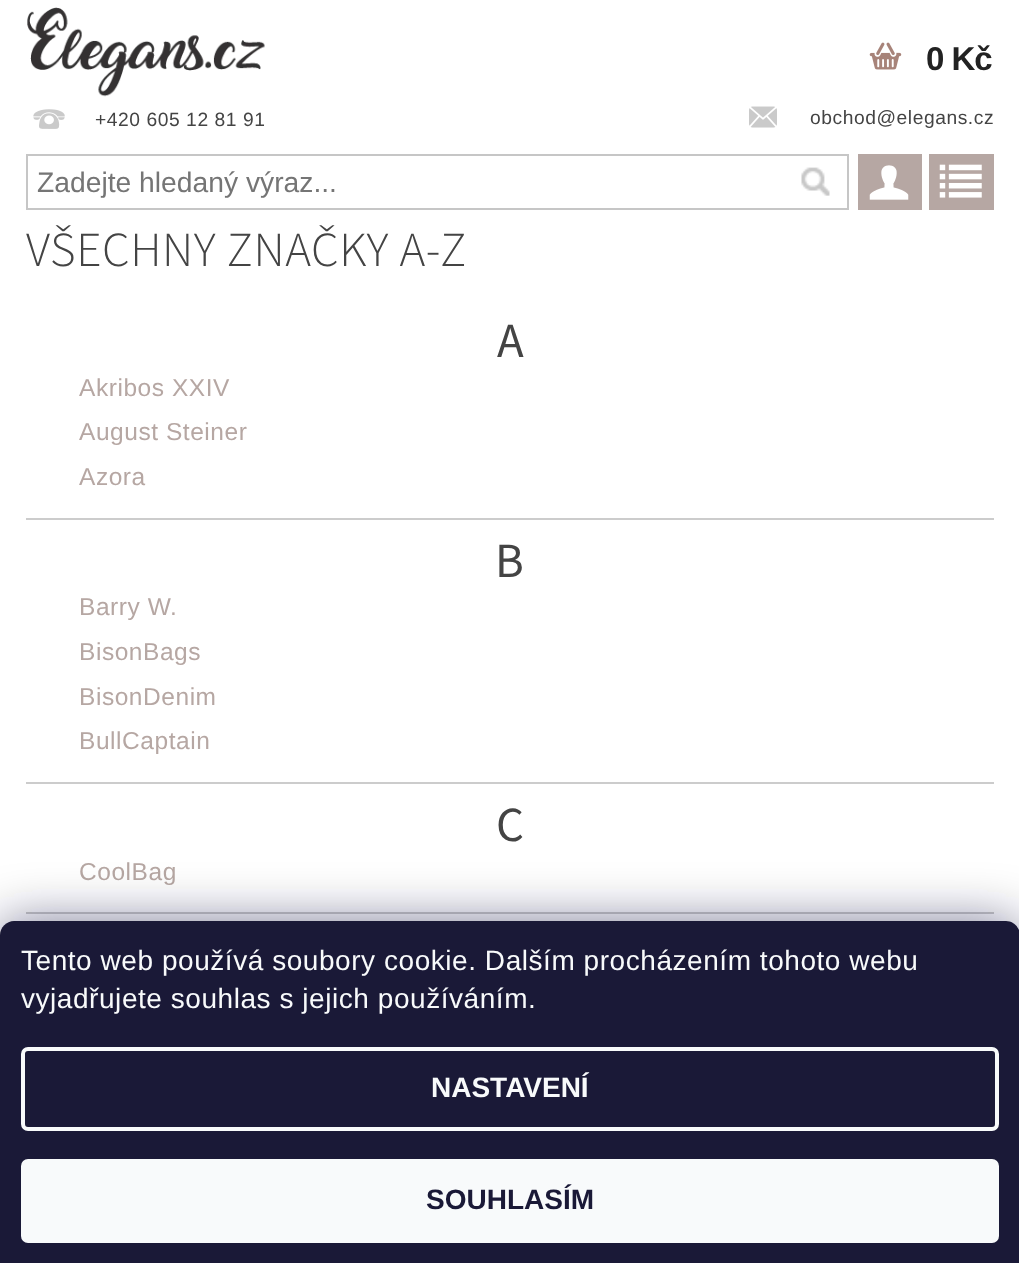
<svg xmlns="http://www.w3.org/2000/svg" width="1019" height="1263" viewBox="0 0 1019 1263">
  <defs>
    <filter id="blur1" x="-50%" y="-200%" width="200%" height="500%"><feGaussianBlur stdDeviation="26"/></filter>
  </defs>
  <rect width="100%" height="100%" fill="#ffffff"/>
  <image x="27" y="7" width="238" height="90" href="img1.png"/>
  <image x="869" y="42" width="33" height="28" href="img2.png"/>
  <text x="926" y="70" font-family="Liberation Sans" font-size="33" font-weight="bold" letter-spacing="-1" fill="#222222">0 Kč</text>
  <rect x="858" y="154" width="64" height="56" fill="#b6a7a3"/>
  <image x="869" y="165" width="40" height="35" href="img3.png"/>
  <image x="33" y="109" width="32" height="20" href="img4.png"/>
  <text x="95" y="126" font-family="Liberation Sans" font-size="19.25" letter-spacing="0.55" fill="#444444">+420 605 12 81 91</text>
  <image x="749" y="106" width="28" height="22" href="img5.png"/>
  <text x="810" y="124" font-family="Liberation Sans" font-size="19.25" letter-spacing="0.55" fill="#444444">obchod@elegans.cz</text>
  <rect x="27" y="155" width="821" height="54" fill="none" stroke="#c6c6c6" stroke-width="2"/>
  <text x="37" y="192" font-family="Liberation Sans" font-size="28.25" fill="#757575">Zadejte hledaný výraz...</text>
  <image x="801" y="167" width="29" height="29" href="img6.png"/>
  <rect x="929" y="154" width="65" height="56" fill="#b6a7a3"/>
  <image x="939" y="164" width="43" height="34" href="img7.png"/>
  <text x="26" y="266" font-family="'Source Sans 3'" font-size="49" font-weight="300" letter-spacing="0.55" fill="#444444">VŠECHNY ZNAČKY A-Z</text>
  <rect x="26" y="518" width="968" height="2" fill="#cccccc"/>
  <text x="497" y="357" font-family="'Source Sans 3'" font-size="49" letter-spacing="0.55" fill="#444444">A</text>
  <text x="79" y="396" font-family="Liberation Sans" font-size="24.5" letter-spacing="0.55" fill="#b6a7a3">Akribos XXIV</text>
  <text x="79" y="440" font-family="Liberation Sans" font-size="24.5" letter-spacing="0.55" fill="#b6a7a3">August Steiner</text>
  <text x="79" y="485" font-family="Liberation Sans" font-size="24.5" letter-spacing="0.55" fill="#b6a7a3">Azora</text>
  <rect x="26" y="782" width="968" height="2" fill="#cccccc"/>
  <text x="495" y="577" font-family="'Source Sans 3'" font-size="49" letter-spacing="0.55" fill="#444444">B</text>
  <text x="79" y="615" font-family="Liberation Sans" font-size="24.5" letter-spacing="0.55" fill="#b6a7a3">Barry W.</text>
  <text x="79" y="660" font-family="Liberation Sans" font-size="24.5" letter-spacing="0.55" fill="#b6a7a3">BisonBags</text>
  <text x="79" y="705" font-family="Liberation Sans" font-size="24.5" letter-spacing="0.55" fill="#b6a7a3">BisonDenim</text>
  <text x="79" y="749" font-family="Liberation Sans" font-size="24.5" letter-spacing="0.55" fill="#b6a7a3">BullCaptain</text>
  <rect x="26" y="912" width="968" height="2" fill="#cccccc"/>
  <text x="496" y="841" font-family="'Source Sans 3'" font-size="49" letter-spacing="0.55" fill="#444444">C</text>
  <text x="79" y="880" font-family="Liberation Sans" font-size="24.5" letter-spacing="0.55" fill="#b6a7a3">CoolBag</text>
  <rect x="0" y="921" width="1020" height="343" rx="14" fill="#1b1939" fill-opacity="0.5" filter="url(#blur1)"/>
  <path d="M14 921H1006C1013.5 921 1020 927.5 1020 935V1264H0V935C0 927.5 6.5 921 14 921Z" fill="#1a1937"/>
  <text x="21" y="970" font-family="Liberation Sans" font-size="28" letter-spacing="0.55" fill="#f8fafb">Tento web používá soubory cookie. Dalším procházením tohoto webu</text>
  <text x="21" y="1008" font-family="Liberation Sans" font-size="28" letter-spacing="0.55" fill="#f8fafb">vyjadřujete souhlas s jejich používáním.</text>
  <rect x="23" y="1049" width="974" height="80" rx="5" fill="none" stroke="#f8fafb" stroke-width="4"/>
  <text x="431" y="1097" font-family="Liberation Sans" font-size="28" font-weight="bold" fill="#f8fafb">NASTAVENÍ</text>
  <rect x="21" y="1159" width="978" height="84" rx="7" fill="#f8fafb"/>
  <text x="426" y="1209" font-family="Liberation Sans" font-size="28" font-weight="bold" fill="#1a1937">SOUHLASÍM</text>
</svg>
